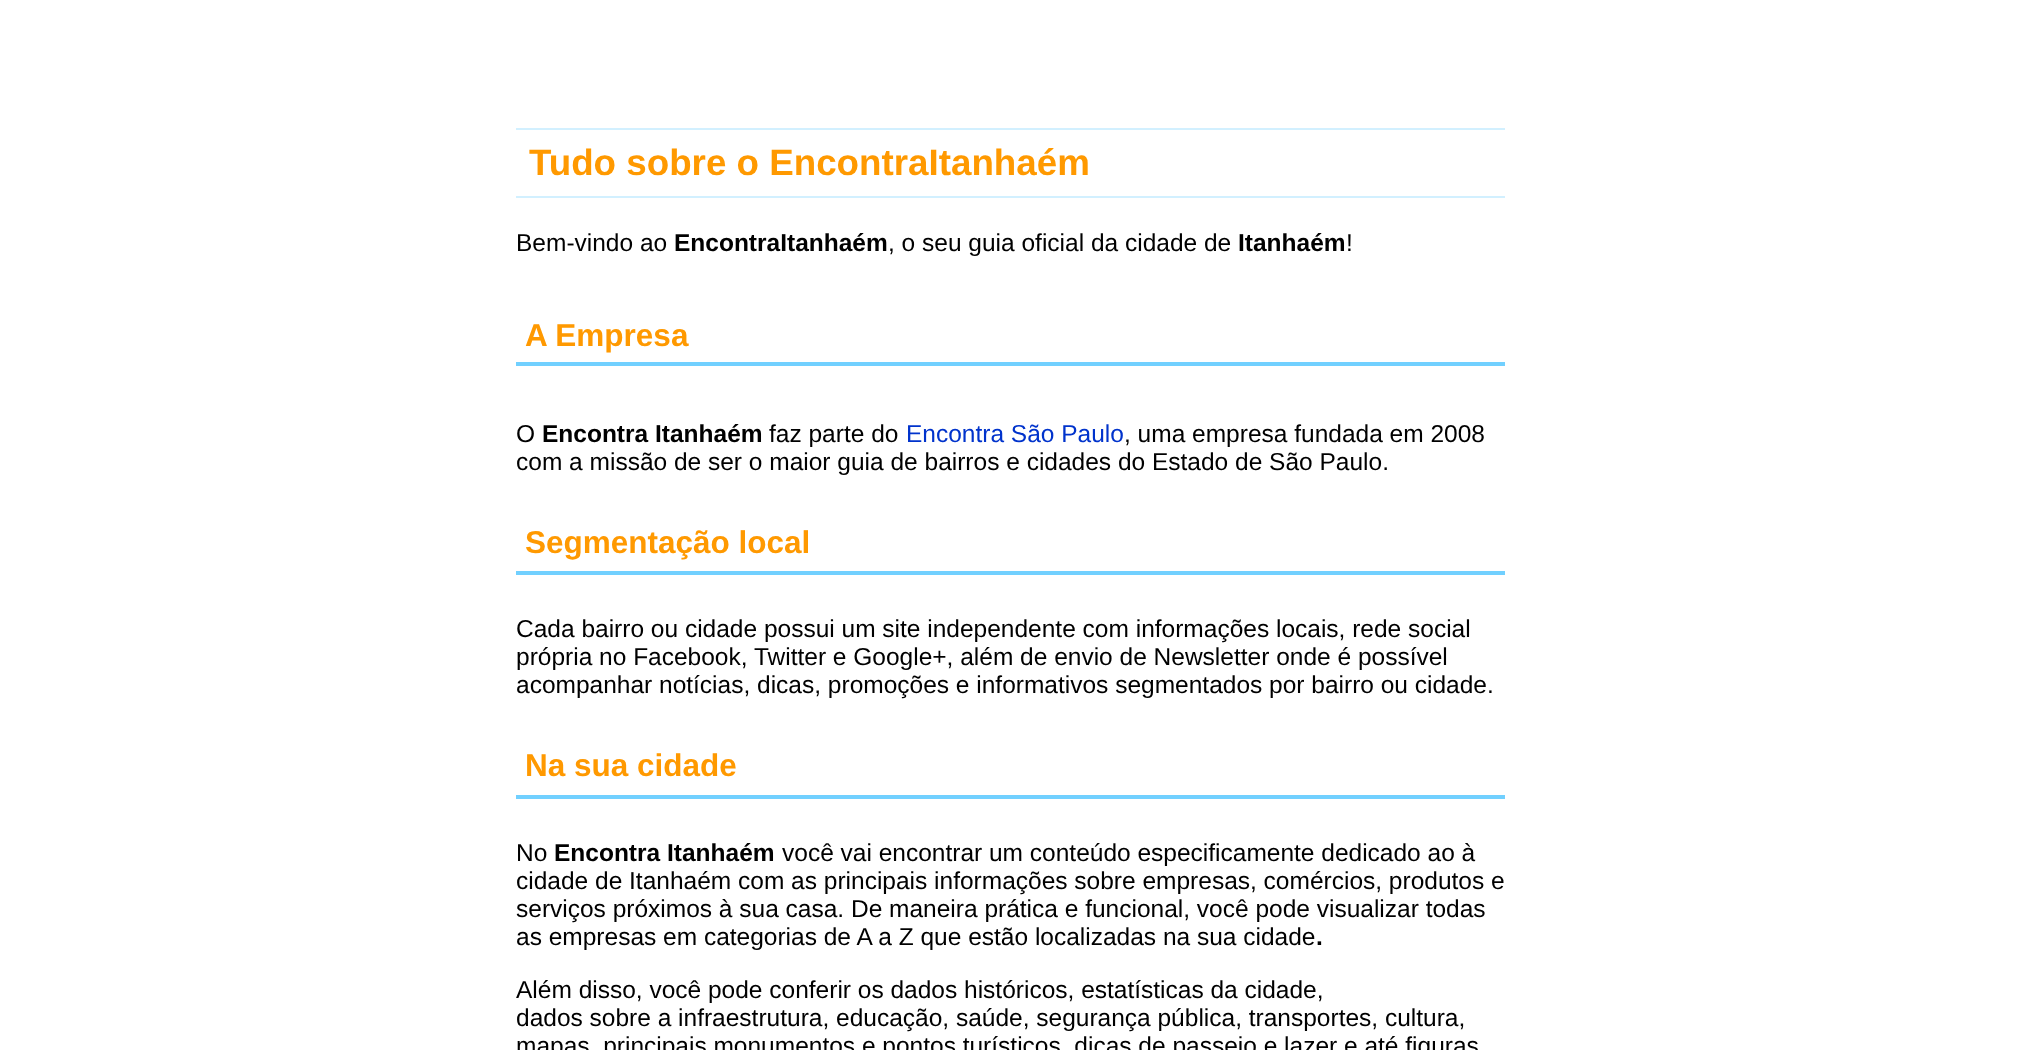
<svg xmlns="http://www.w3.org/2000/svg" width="2025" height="1050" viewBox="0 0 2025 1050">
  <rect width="100%" height="100%" fill="#ffffff"/>
  <rect x="516" y="128" width="989" height="2" fill="#d2f0ff"/>
  <rect x="516" y="196" width="989" height="2" fill="#d2f0ff"/>
  <text x="529" y="175" font-family="Liberation Sans" font-size="36.75" font-weight="bold" fill="#ff9900">Tudo sobre o EncontraItanhaém</text>
  <text x="516" y="251" font-family="Liberation Sans" font-size="24.5" fill="#000000">Bem-vindo ao</text>
  <text x="674" y="251" font-family="Liberation Sans" font-size="24.5" font-weight="bold" fill="#000000">EncontraItanhaém</text>
  <text x="888" y="251" font-family="Liberation Sans" font-size="24.5" fill="#000000">, o seu guia oficial da cidade de</text>
  <text x="1238" y="251" font-family="Liberation Sans" font-size="24.5" font-weight="bold" fill="#000000">Itanhaém</text>
  <text x="1346" y="251" font-family="Liberation Sans" font-size="24.5" fill="#000000">!</text>
  <rect x="516" y="362" width="989" height="4" fill="#71d0ff"/>
  <text x="525" y="346" font-family="Liberation Sans" font-size="31.5" font-weight="bold" fill="#ff9900">A Empresa</text>
  <text x="516" y="442" font-family="Liberation Sans" font-size="24.5" fill="#000000">O</text>
  <text x="542" y="442" font-family="Liberation Sans" font-size="24.5" font-weight="bold" fill="#000000">Encontra Itanhaém</text>
  <text x="769" y="442" font-family="Liberation Sans" font-size="24.5" fill="#000000">faz parte do</text>
  <text x="906" y="442" font-family="Liberation Sans" font-size="24.5" fill="#0033cc">Encontra São Paulo</text>
  <text x="1124" y="442" font-family="Liberation Sans" font-size="24.5" fill="#000000">, uma empresa fundada em 2008</text>
  <text x="516" y="470" font-family="Liberation Sans" font-size="24.5" fill="#000000">com a missão de ser o maior guia de bairros e cidades do Estado de São Paulo.</text>
  <rect x="516" y="571" width="989" height="4" fill="#71d0ff"/>
  <text x="525" y="553" font-family="Liberation Sans" font-size="31.5" font-weight="bold" fill="#ff9900">Segmentação local</text>
  <text x="516" y="637" font-family="Liberation Sans" font-size="24.5" fill="#000000">Cada bairro ou cidade possui um site independente com informações locais, rede social</text>
  <text x="516" y="665" font-family="Liberation Sans" font-size="24.5" fill="#000000">própria no Facebook, Twitter e Google+, além de envio de Newsletter onde é possível</text>
  <text x="516" y="693" font-family="Liberation Sans" font-size="24.5" fill="#000000">acompanhar notícias, dicas, promoções e informativos segmentados por bairro ou cidade.</text>
  <rect x="516" y="795" width="989" height="4" fill="#71d0ff"/>
  <text x="525" y="776" font-family="Liberation Sans" font-size="31.5" font-weight="bold" fill="#ff9900">Na sua cidade</text>
  <text x="516" y="861" font-family="Liberation Sans" font-size="24.5" fill="#000000">No</text>
  <text x="554" y="861" font-family="Liberation Sans" font-size="24.5" font-weight="bold" fill="#000000">Encontra Itanhaém</text>
  <text x="782" y="861" font-family="Liberation Sans" font-size="24.5" fill="#000000">você vai encontrar um conteúdo especificamente dedicado ao à</text>
  <text x="516" y="889" font-family="Liberation Sans" font-size="24.5" fill="#000000">cidade de Itanhaém com as principais informações sobre empresas, comércios, produtos e</text>
  <text x="516" y="917" font-family="Liberation Sans" font-size="24.5" fill="#000000">serviços próximos à sua casa. De maneira prática e funcional, você pode visualizar todas</text>
  <text x="516" y="945" font-family="Liberation Sans" font-size="24.5" fill="#000000">as empresas em categorias de A a Z que estão localizadas na sua cidade</text>
  <text x="1316" y="945" font-family="Liberation Sans" font-size="24.5" font-weight="bold" fill="#000000">.</text>
  <text x="516" y="998" font-family="Liberation Sans" font-size="24.5" fill="#000000">Além disso, você pode conferir os dados históricos, estatísticas da cidade,</text>
  <text x="516" y="1026" font-family="Liberation Sans" font-size="24.5" fill="#000000">dados sobre a infraestrutura, educação, saúde, segurança pública, transportes, cultura,</text>
  <text x="516" y="1054" font-family="Liberation Sans" font-size="24.5" fill="#000000">mapas, principais monumentos e pontos turísticos, dicas de passeio e lazer e até figuras</text>
</svg>
